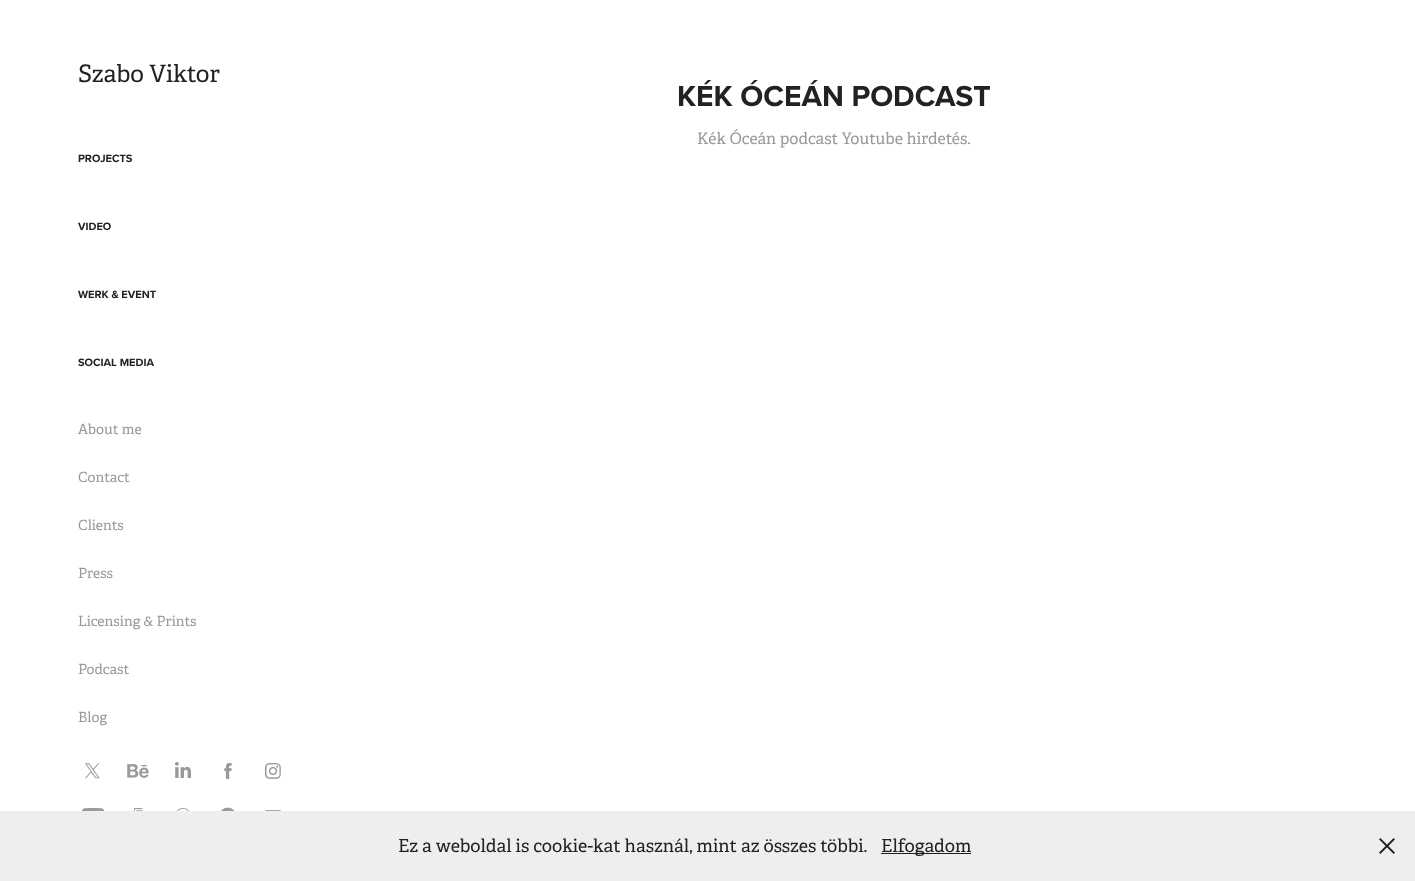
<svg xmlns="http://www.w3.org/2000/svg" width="1415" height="881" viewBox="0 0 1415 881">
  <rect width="100%" height="100%" fill="#ffffff"/>
  <text x="78" y="82" font-family="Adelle" font-size="24" fill="#222222">Szabo Viktor</text>
  <text x="78" y="162" font-family="Proxima Nova" font-size="11" font-weight="bold" fill="#222222">PROJECTS</text>
  <text x="78" y="230" font-family="Proxima Nova" font-size="11" font-weight="bold" fill="#222222">VIDEO</text>
  <text x="78" y="298" font-family="Proxima Nova" font-size="11" font-weight="bold" fill="#222222">WERK &amp; EVENT</text>
  <text x="78" y="366" font-family="Proxima Nova" font-size="11" font-weight="bold" fill="#222222">SOCIAL MEDIA</text>
  <text x="78" y="434" font-family="Adelle" font-size="14" fill="#999999">About me</text>
  <text x="78" y="482" font-family="Adelle" font-size="14" fill="#999999">Contact</text>
  <text x="78" y="530" font-family="Adelle" font-size="14" fill="#999999">Clients</text>
  <text x="78" y="578" font-family="Adelle" font-size="14" fill="#999999">Press</text>
  <text x="78" y="626" font-family="Adelle" font-size="14" fill="#999999">Licensing &amp; Prints</text>
  <text x="78" y="674" font-family="Adelle" font-size="14" fill="#999999">Podcast</text>
  <text x="78" y="722" font-family="Adelle" font-size="14" fill="#999999">Blog</text>
  <image x="85" y="763" width="15" height="16" href="img1.png"/>
  <image x="127" y="764" width="22" height="14" href="img2.png"/>
  <image x="175" y="762" width="16" height="16" href="img3.png"/>
  <image x="224" y="763" width="8" height="16" href="img4.png"/>
  <image x="265" y="763" width="16" height="16" href="img5.png"/>
  <image x="82" y="808" width="23" height="3" href="img6.png"/>
  <image x="134" y="808" width="9" height="3" href="img7.png"/>
  <image x="176" y="808" width="13" height="3" href="img8.png"/>
  <image x="221" y="807" width="14" height="4" href="img9.png"/>
  <image x="265" y="810" width="16" height="1" href="img10.png"/>
  <text x="677" y="106" font-family="Proxima Nova" font-size="30" font-weight="bold" fill="#222222">KÉK ÓCEÁN PODCAST</text>
  <text x="697" y="144" font-family="Adelle" font-size="16" fill="#999999">Kék Óceán podcast Youtube hirdetés.</text>
  <rect x="0" y="811" width="1415" height="70" fill="#edeeee"/>
  <text x="398" y="852" font-family="Adelle" font-size="18" fill="#222222">Ez a weboldal is cookie-kat használ, mint az összes többi.</text>
  <rect x="881" y="853" width="90" height="1" fill="#212121"/>
  <text x="881" y="852" font-family="Adelle" font-size="18" fill="#222222">Elfogadom</text>
  <image x="1379" y="838" width="16" height="16" href="img11.png"/>
</svg>
